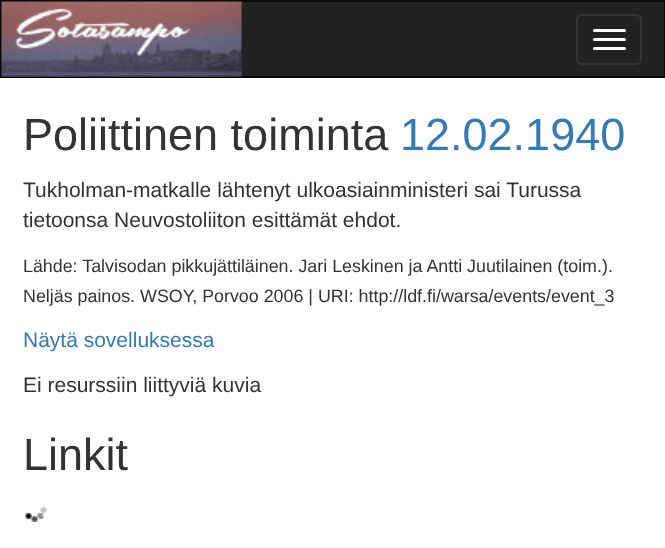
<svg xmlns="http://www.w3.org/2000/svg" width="665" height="548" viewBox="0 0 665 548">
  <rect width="100%" height="100%" fill="#ffffff"/>
  <rect x="241" y="2" width="423" height="74" fill="#222222"/>
  <rect x="1" y="1" width="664" height="76" fill="none" stroke="#090909" stroke-width="2"/>
  <image x="1" y="1" width="241" height="76" href="img1.png"/>
  <rect x="577" y="15" width="64" height="49" rx="5" fill="none" stroke="#333333" stroke-width="2"/>
  <rect x="593" y="29" width="33" height="3" rx="1.5" fill="#ffffff"/>
  <rect x="593" y="38" width="33" height="3" rx="1.5" fill="#ffffff"/>
  <rect x="593" y="47" width="33" height="3" rx="1.5" fill="#ffffff"/>
  <text x="23" y="150" font-family="Liberation Sans" font-size="45" fill="#333333">Poliittinen toiminta</text>
  <text x="400" y="150" font-family="Liberation Sans" font-size="45" fill="#337ab7">12.02.1940</text>
  <text x="23" y="197" font-family="Liberation Sans" font-size="21" fill="#333333">Tukholman-matkalle lähtenyt ulkoasiainministeri sai Turussa</text>
  <text x="23" y="227" font-family="Liberation Sans" font-size="21" fill="#333333">tietoonsa Neuvostoliiton esittämät ehdot.</text>
  <text x="23" y="272" font-family="Liberation Sans" font-size="17.85" fill="#333333">Lähde: Talvisodan pikkujättiläinen. Jari Leskinen ja Antti Juutilainen (toim.).</text>
  <text x="23" y="302" font-family="Liberation Sans" font-size="17.85" fill="#333333">Neljäs painos. WSOY, Porvoo 2006 | URI: http://ldf.fi/warsa/events/event_3</text>
  <text x="23" y="347" font-family="Liberation Sans" font-size="21" fill="#337ab7">Näytä sovelluksessa</text>
  <text x="23" y="392" font-family="Liberation Sans" font-size="21" fill="#333333">Ei resurssiin liittyviä kuvia</text>
  <text x="23" y="470" font-family="Liberation Sans" font-size="45" fill="#333333">Linkit</text>
  <image x="25" y="506" width="22" height="16" href="img2.png"/>
</svg>
